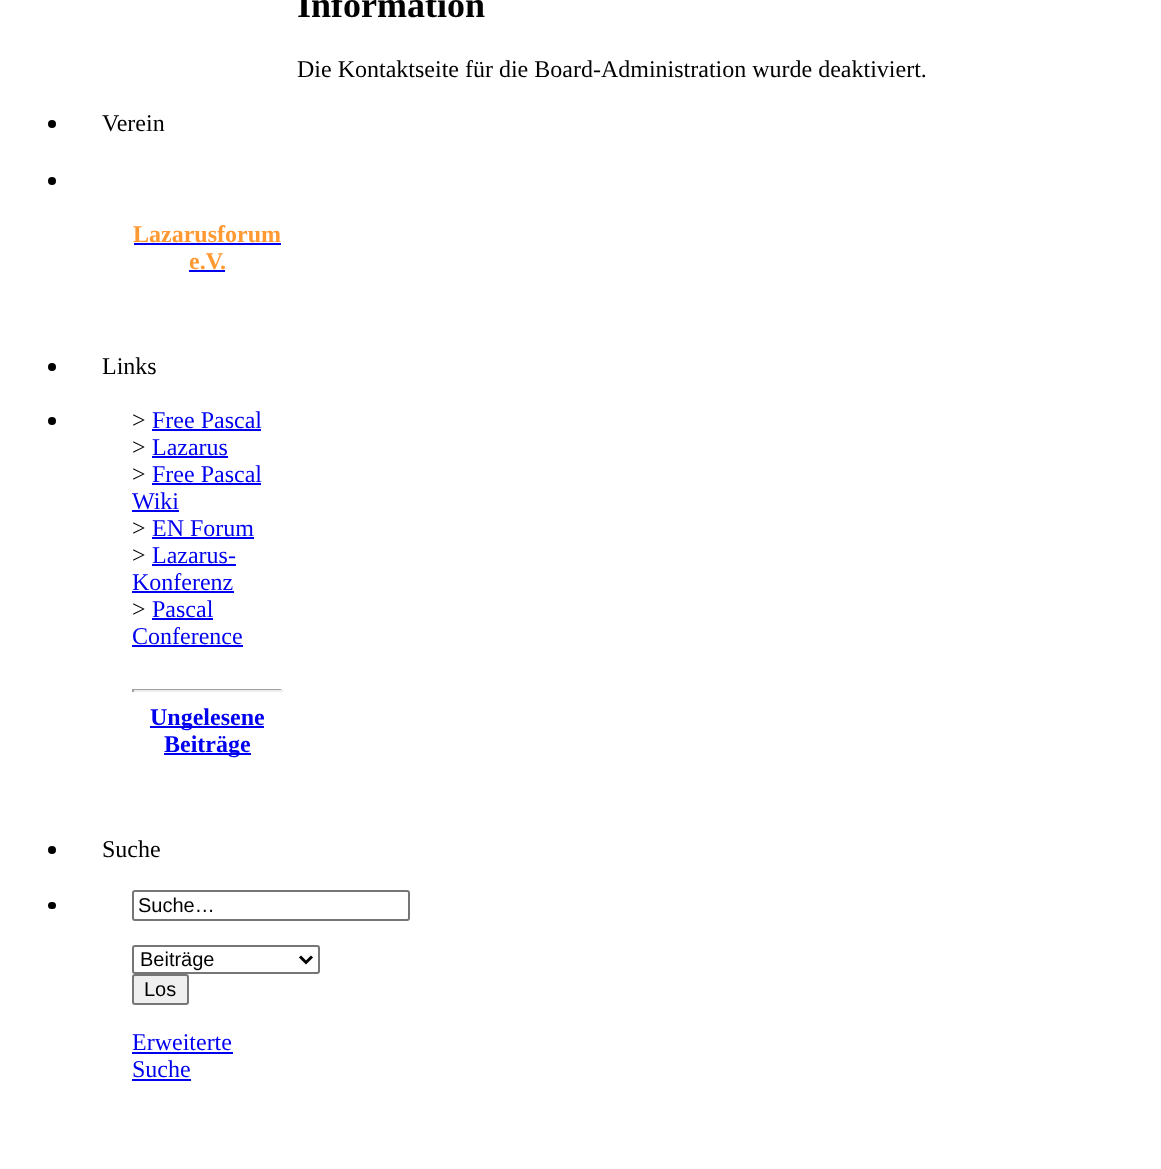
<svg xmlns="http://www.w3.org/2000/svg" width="1161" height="1169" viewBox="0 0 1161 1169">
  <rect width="100%" height="100%" fill="#ffffff"/>
  <text x="297" y="17" font-family="Liberation Serif" font-size="36" font-weight="bold" fill="#000000">Information</text>
  <text x="297" y="77" font-family="Liberation Serif" font-size="24" fill="#000000">Die Kontaktseite für die Board-Administration wurde deaktiviert.</text>
  <circle cx="52" cy="124" r="4" fill="#000000"/>
  <text x="102" y="131" font-family="Liberation Serif" font-size="24" fill="#000000">Verein</text>
  <circle cx="52" cy="181" r="4" fill="#000000"/>
  <text x="133" y="242" font-family="Liberation Serif" font-size="24" font-weight="bold" fill="#ff9933">Lazarusforum</text>
  <rect x="134" y="243" width="147" height="2" fill="#0000ee"/>
  <text x="189" y="269" font-family="Liberation Serif" font-size="24" font-weight="bold" fill="#ff9933">e.V.</text>
  <rect x="189" y="270" width="36" height="2" fill="#0000ee"/>
  <circle cx="52" cy="367" r="4" fill="#000000"/>
  <text x="102" y="374" font-family="Liberation Serif" font-size="24" fill="#000000">Links</text>
  <circle cx="52" cy="421" r="4" fill="#000000"/>
  <text x="132" y="428" font-family="Liberation Serif" font-size="24" fill="#000000">&gt;</text>
  <text x="152" y="428" font-family="Liberation Serif" font-size="24" fill="#0000ee">Free Pascal</text>
  <rect x="152" y="429" width="109" height="2" fill="#0000ee"/>
  <text x="132" y="455" font-family="Liberation Serif" font-size="24" fill="#000000">&gt;</text>
  <text x="152" y="455" font-family="Liberation Serif" font-size="24" fill="#0000ee">Lazarus</text>
  <rect x="152" y="456" width="76" height="2" fill="#0000ee"/>
  <text x="132" y="482" font-family="Liberation Serif" font-size="24" fill="#000000">&gt;</text>
  <text x="152" y="482" font-family="Liberation Serif" font-size="24" fill="#0000ee">Free Pascal</text>
  <rect x="152" y="483" width="109" height="2" fill="#0000ee"/>
  <text x="132" y="509" font-family="Liberation Serif" font-size="24" fill="#0000ee">Wiki</text>
  <rect x="132" y="510" width="47" height="2" fill="#0000ee"/>
  <text x="132" y="536" font-family="Liberation Serif" font-size="24" fill="#000000">&gt;</text>
  <text x="152" y="536" font-family="Liberation Serif" font-size="24" fill="#0000ee">EN Forum</text>
  <rect x="152" y="537" width="102" height="2" fill="#0000ee"/>
  <text x="132" y="563" font-family="Liberation Serif" font-size="24" fill="#000000">&gt;</text>
  <text x="152" y="563" font-family="Liberation Serif" font-size="24" fill="#0000ee">Lazarus-</text>
  <rect x="152" y="564" width="84" height="2" fill="#0000ee"/>
  <text x="132" y="590" font-family="Liberation Serif" font-size="24" fill="#0000ee">Konferenz</text>
  <rect x="132" y="591" width="102" height="2" fill="#0000ee"/>
  <text x="132" y="617" font-family="Liberation Serif" font-size="24" fill="#000000">&gt;</text>
  <text x="152" y="617" font-family="Liberation Serif" font-size="24" fill="#0000ee">Pascal</text>
  <rect x="152" y="618" width="61" height="2" fill="#0000ee"/>
  <text x="132" y="644" font-family="Liberation Serif" font-size="24" fill="#0000ee">Conference</text>
  <rect x="132" y="645" width="111" height="2" fill="#0000ee"/>
  <rect x="132" y="689" width="150" height="1" fill="#9f9f9f"/>
  <rect x="281" y="689" width="2" height="3" fill="#eeeeee"/>
  <rect x="132" y="690" width="150" height="2" fill="#eeeeee"/>
  <rect x="132" y="689" width="2" height="3" fill="#9f9f9f"/>
  <rect x="150" y="726" width="114" height="2" fill="#0000ee"/>
  <text x="150" y="725" font-family="Liberation Serif" font-size="24" font-weight="bold" fill="#0000ee">Ungelesene</text>
  <rect x="164" y="753" width="87" height="2" fill="#0000ee"/>
  <text x="164" y="752" font-family="Liberation Serif" font-size="24" font-weight="bold" fill="#0000ee">Beiträge</text>
  <circle cx="52" cy="850" r="4" fill="#000000"/>
  <text x="102" y="857" font-family="Liberation Serif" font-size="24" fill="#000000">Suche</text>
  <rect x="48" y="902" width="8" height="7" rx="3.5" fill="#000000"/>
  <rect x="133" y="891" width="276" height="29" rx="2" fill="none" stroke="#767676" stroke-width="2"/>
  <text x="138" y="912" font-family="Liberation Sans" font-size="20" fill="#000000">Suche…</text>
  <rect x="133" y="946" width="186" height="27" rx="2" fill="none" stroke="#767676" stroke-width="2"/>
  <path d="M300 956.5L306 962.5L312 956.5" fill="none" stroke="#000000" stroke-width="3"/>
  <text x="140" y="966" font-family="Liberation Sans" font-size="20" fill="#000000">Beiträge</text>
  <rect x="133" y="975" width="55" height="29" rx="2" fill="#efefef" stroke="#767676" stroke-width="2"/>
  <text x="144" y="996" font-family="Liberation Sans" font-size="20" fill="#000000">Los</text>
  <text x="132" y="1050" font-family="Liberation Serif" font-size="24" fill="#0000ee">Erweiterte</text>
  <rect x="132" y="1052" width="101" height="2" fill="#0000ee"/>
  <text x="132" y="1077" font-family="Liberation Serif" font-size="24" fill="#0000ee">Suche</text>
  <rect x="132" y="1079" width="59" height="2" fill="#0000ee"/>
</svg>
